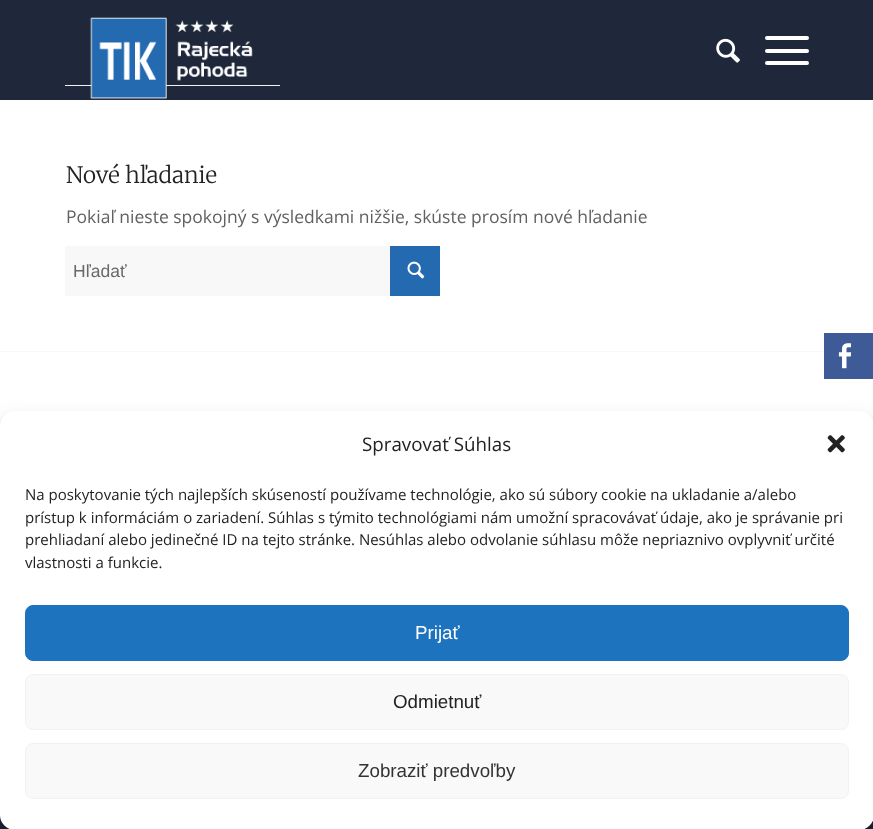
<svg xmlns="http://www.w3.org/2000/svg" width="873" height="829" viewBox="0 0 873 829">
  <defs>
    <filter id="blur1" x="-50%" y="-200%" width="200%" height="500%"><feGaussianBlur stdDeviation="4"/></filter>
    <filter id="blur2" x="-50%" y="-200%" width="200%" height="500%"><feGaussianBlur stdDeviation="12.5"/></filter>
  </defs>
  <rect width="100%" height="100%" fill="#1f283b"/>
  <image x="65" y="17" width="215" height="83" href="img1.png"/>
  <image x="716" y="38" width="24" height="25" href="img2.png"/>
  <rect x="765" y="49" width="44" height="4" rx="2" fill="#ffffff"/>
  <rect x="765" y="36" width="44" height="4" rx="2" fill="#ffffff"/>
  <rect x="765" y="61" width="44" height="4" rx="2" fill="#ffffff"/>
  <rect x="0" y="100" width="873" height="326" fill="#ffffff"/>
  <text x="66" y="183" font-family="Merriweather" font-size="22.5" font-weight="300" fill="#222222">Nové hľadanie</text>
  <text x="66" y="223" font-family="Open Sans" font-size="17.5" fill="#616161">Pokiaľ nieste spokojný s výsledkami nižšie, skúste prosím nové hľadanie</text>
  <rect x="65" y="246" width="325" height="50" fill="#f8f8f8"/>
  <text x="73" y="277" font-family="Liberation Sans" font-size="17.5" fill="#696969">Hľadať</text>
  <rect x="390" y="246" width="50" height="50" fill="#236ab1"/>
  <image x="407" y="261" width="18" height="18" href="img3.png"/>
  <rect x="0" y="351" width="824" height="1" fill="#f8f8f8"/>
  <rect x="824" y="333" width="49" height="46" fill="#3e5b98"/>
  <image x="838" y="343" width="14" height="26" href="img4.png"/>
  <rect x="0" y="419" width="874" height="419" rx="15" fill="#000000" fill-opacity="0.23" filter="url(#blur1)"/>
  <rect x="0" y="424" width="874" height="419" rx="15" fill="#000000" fill-opacity="0.19" filter="url(#blur2)"/>
  <rect x="0" y="411" width="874" height="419" rx="15" fill="#ffffff"/>
  <text x="362" y="451" font-family="Open Sans" font-size="18.75" fill="#222222">Spravovať Súhlas</text>
  <image x="827" y="435" width="18" height="18" href="img5.png"/>
  <text x="25" y="500" font-family="Open Sans" font-size="15" fill="#222222">Na poskytovanie tých najlepších skúseností používame technológie, ako sú súbory cookie na ukladanie a/alebo</text>
  <text x="25" y="523" font-family="Open Sans" font-size="15" fill="#222222">prístup k informáciám o zariadení. Súhlas s týmito technológiami nám umožní spracovávať údaje, ako je správanie pri</text>
  <text x="25" y="545" font-family="Open Sans" font-size="15" fill="#222222">prehliadaní alebo jedinečné ID na tejto stránke. Nesúhlas alebo odvolanie súhlasu môže nepriaznivo ovplyvniť určité</text>
  <text x="25" y="568" font-family="Open Sans" font-size="15" fill="#222222">vlastnosti a funkcie.</text>
  <rect x="25.5" y="605.5" width="823" height="55" rx="7.5" fill="#1e73be" stroke="#1e73be"/>
  <text x="415" y="639" font-family="Liberation Sans" font-size="18.75" fill="#ffffff">Prijať</text>
  <rect x="25.5" y="674.5" width="823" height="55" rx="7.5" fill="#f9f9f9" stroke="#f2f2f2"/>
  <text x="393" y="708" font-family="Liberation Sans" font-size="18.75" fill="#222222">Odmietnuť</text>
  <rect x="25.5" y="743.5" width="823" height="55" rx="7.5" fill="#f9f9f9" stroke="#f2f2f2"/>
  <text x="358" y="777" font-family="Liberation Sans" font-size="18.75" fill="#333333">Zobraziť predvoľby</text>
</svg>
